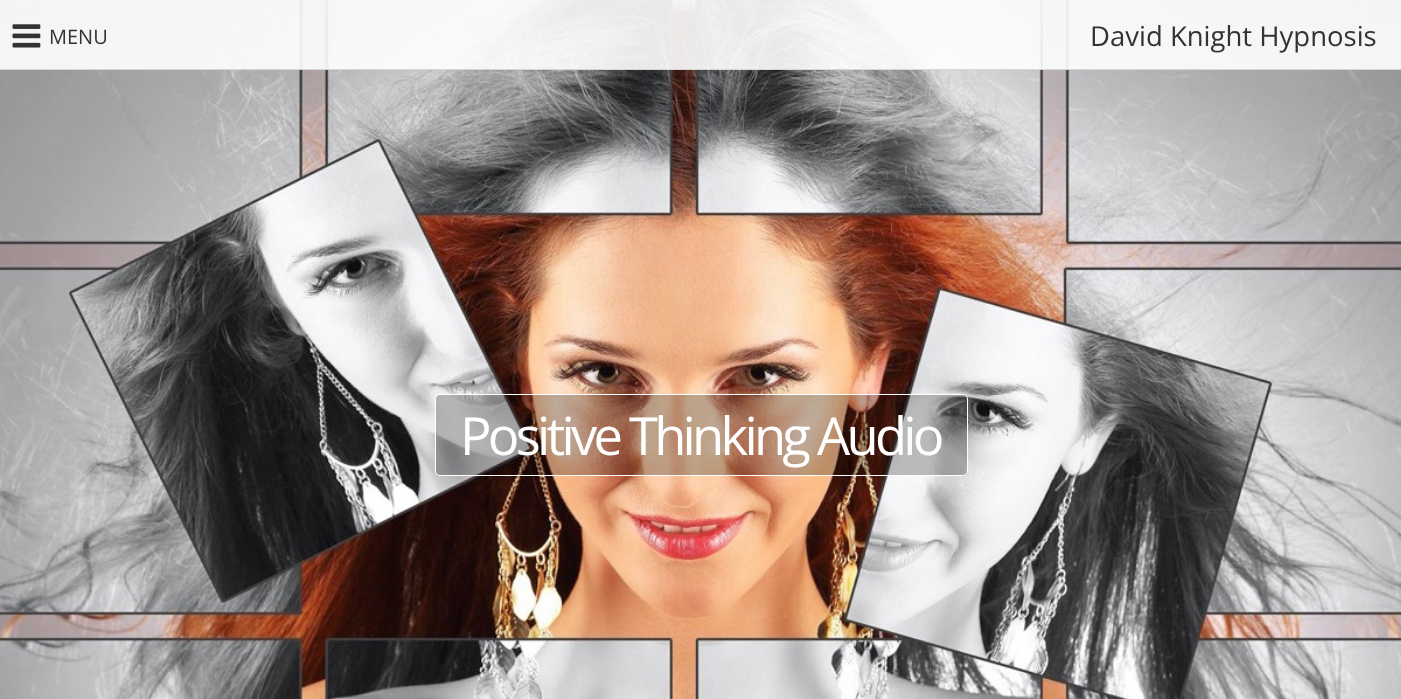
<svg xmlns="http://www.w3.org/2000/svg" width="1401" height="699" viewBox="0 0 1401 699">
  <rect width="100%" height="100%" fill="#ffffff"/>
  <image x="0" y="0" width="1401" height="699" href="img2.png"/>
  <rect x="0" y="0" width="1401" height="69" fill="#ffffff" fill-opacity="0.9"/>
  <rect x="0" y="69" width="1401" height="1" fill="#d6d6d6"/>
  <image x="12" y="24" width="29" height="24" href="img1.png"/>
  <text x="49" y="44" font-family="Open Sans" font-size="20" fill="#333333">MENU</text>
  <text x="1090" y="46" font-family="Open Sans" font-size="27.5" fill="#333333">David Knight Hypnosis</text>
  <rect x="435.5" y="394.5" width="532" height="81" rx="4.5" fill="#000000" fill-opacity="0.25" stroke="#ffffff"/>
  <text x="460" y="455" font-family="Open Sans" font-size="52.5" letter-spacing="-3.75" fill="#ffffff">Positive Thinking Audio</text>
</svg>
